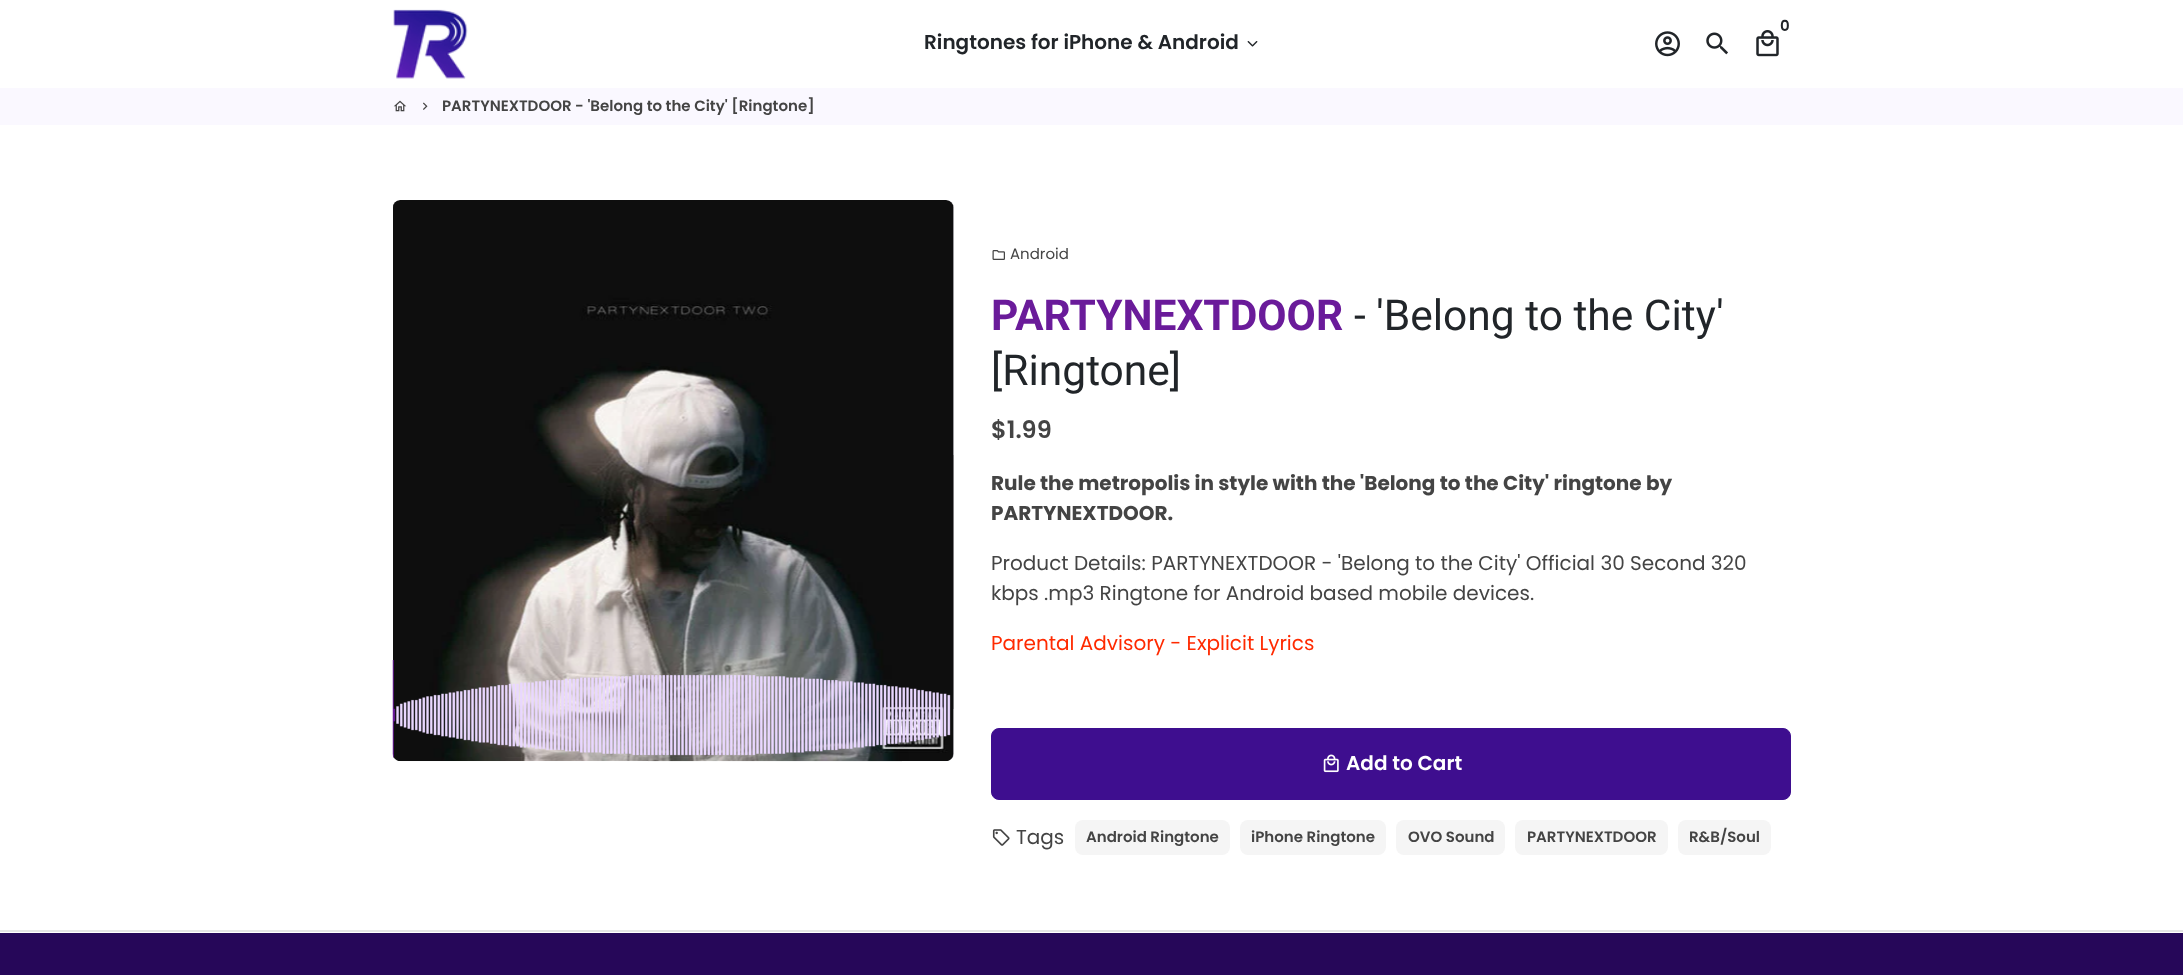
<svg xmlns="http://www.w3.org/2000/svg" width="2183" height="975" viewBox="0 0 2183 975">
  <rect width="100%" height="100%" fill="#ffffff"/>
  <image x="393" y="9" width="75" height="70" href="img1.png"/>
  <text x="1780" y="31" font-family="Poppins" font-size="15" font-weight="600" fill="#212529">0</text>
  <image x="1756" y="30" width="23" height="27" href="img2.png"/>
  <image x="1655" y="31" width="25" height="26" href="img3.png"/>
  <image x="1706" y="32" width="22" height="23" href="img4.png"/>
  <text x="924" y="49" font-family="Poppins" font-size="20" font-weight="600" fill="#212529">Ringtones for iPhone &amp; Android</text>
  <image x="1247" y="41" width="11" height="6" href="img5.png"/>
  <rect x="0" y="88" width="2183" height="37" fill="#faf8ff"/>
  <image x="393" y="100" width="14" height="12" href="img6.png"/>
  <image x="423" y="102" width="5" height="8" href="img7.png"/>
  <text x="442" y="111" font-family="Poppins" font-size="15" font-weight="600" fill="#444444">PARTYNEXTDOOR - 'Belong to the City' [Ringtone]</text>
  <rect x="393" y="200" width="561" height="561" rx="8" fill="#faf8ff"/>
  <image x="393" y="200" width="561" height="562" href="img8.png"/>
  <image x="392" y="660" width="559" height="98" href="img9.png"/>
  <image x="992" y="250" width="13" height="10" href="img10.png"/>
  <text x="1010" y="259" font-family="Poppins" font-size="15" fill="#444444">Android</text>
  <text x="991" y="330" font-family="Roboto" font-size="42.5" font-weight="bold" fill="#6a1b9a">PARTYNEXTDOOR</text>
  <text x="1354" y="330" font-family="Roboto" font-size="42.5" fill="#212529">- 'Belong to the City'</text>
  <text x="991" y="385" font-family="Roboto" font-size="42.5" fill="#212529">[Ringtone]</text>
  <text x="991" y="438" font-family="Poppins" font-size="24" font-weight="600" fill="#444444">$1.99</text>
  <text x="991" y="490" font-family="Poppins" font-size="20" font-weight="bold" fill="#444444">Rule the metropolis in style with the 'Belong to the City' ringtone by</text>
  <text x="991" y="520" font-family="Poppins" font-size="20" font-weight="bold" fill="#444444">PARTYNEXTDOOR.</text>
  <text x="991" y="570" font-family="Poppins" font-size="20" fill="#444444">Product Details: PARTYNEXTDOOR - 'Belong to the City' Official 30 Second 320</text>
  <text x="991" y="600" font-family="Poppins" font-size="20" fill="#444444">kbps .mp3 Ringtone for Android based mobile devices.</text>
  <text x="991" y="650" font-family="Poppins" font-size="20" fill="#ff2a00">Parental Advisory - Explicit Lyrics</text>
  <rect x="991.5" y="728.5" width="799" height="71" rx="7.5" fill="#3e0e8f" stroke="#3e0e8f"/>
  <image x="1323" y="754" width="16" height="19" href="img11.png"/>
  <text x="1346" y="770" font-family="Poppins" font-size="20" font-weight="600" fill="#ffffff">Add to Cart</text>
  <image x="992" y="829" width="18" height="17" href="img12.png"/>
  <text x="1016" y="844" font-family="Poppins" font-size="20" fill="#444444">Tags</text>
  <rect x="1075" y="820" width="155" height="35" rx="8" fill="#f5f5f5"/>
  <text x="1086" y="842" font-family="Poppins" font-size="15" font-weight="600" fill="#444444">Android Ringtone</text>
  <rect x="1240" y="820" width="146" height="35" rx="8" fill="#f5f5f5"/>
  <text x="1251" y="842" font-family="Poppins" font-size="15" font-weight="600" fill="#444444">iPhone Ringtone</text>
  <rect x="1396" y="820" width="109" height="35" rx="8" fill="#f5f5f5"/>
  <text x="1408" y="842" font-family="Poppins" font-size="15" font-weight="600" fill="#444444">OVO Sound</text>
  <rect x="1515" y="820" width="153" height="35" rx="8" fill="#f5f5f5"/>
  <text x="1527" y="842" font-family="Poppins" font-size="15" font-weight="600" fill="#444444">PARTYNEXTDOOR</text>
  <rect x="1678" y="820" width="93" height="35" rx="8" fill="#f5f5f5"/>
  <text x="1689" y="842" font-family="Poppins" font-size="15" font-weight="600" fill="#444444">R&amp;B/Soul</text>
  <rect x="0" y="930" width="2183" height="2" fill="#e5e5e5"/>
  <rect x="0" y="933" width="2183" height="42" fill="#260759"/>
</svg>
